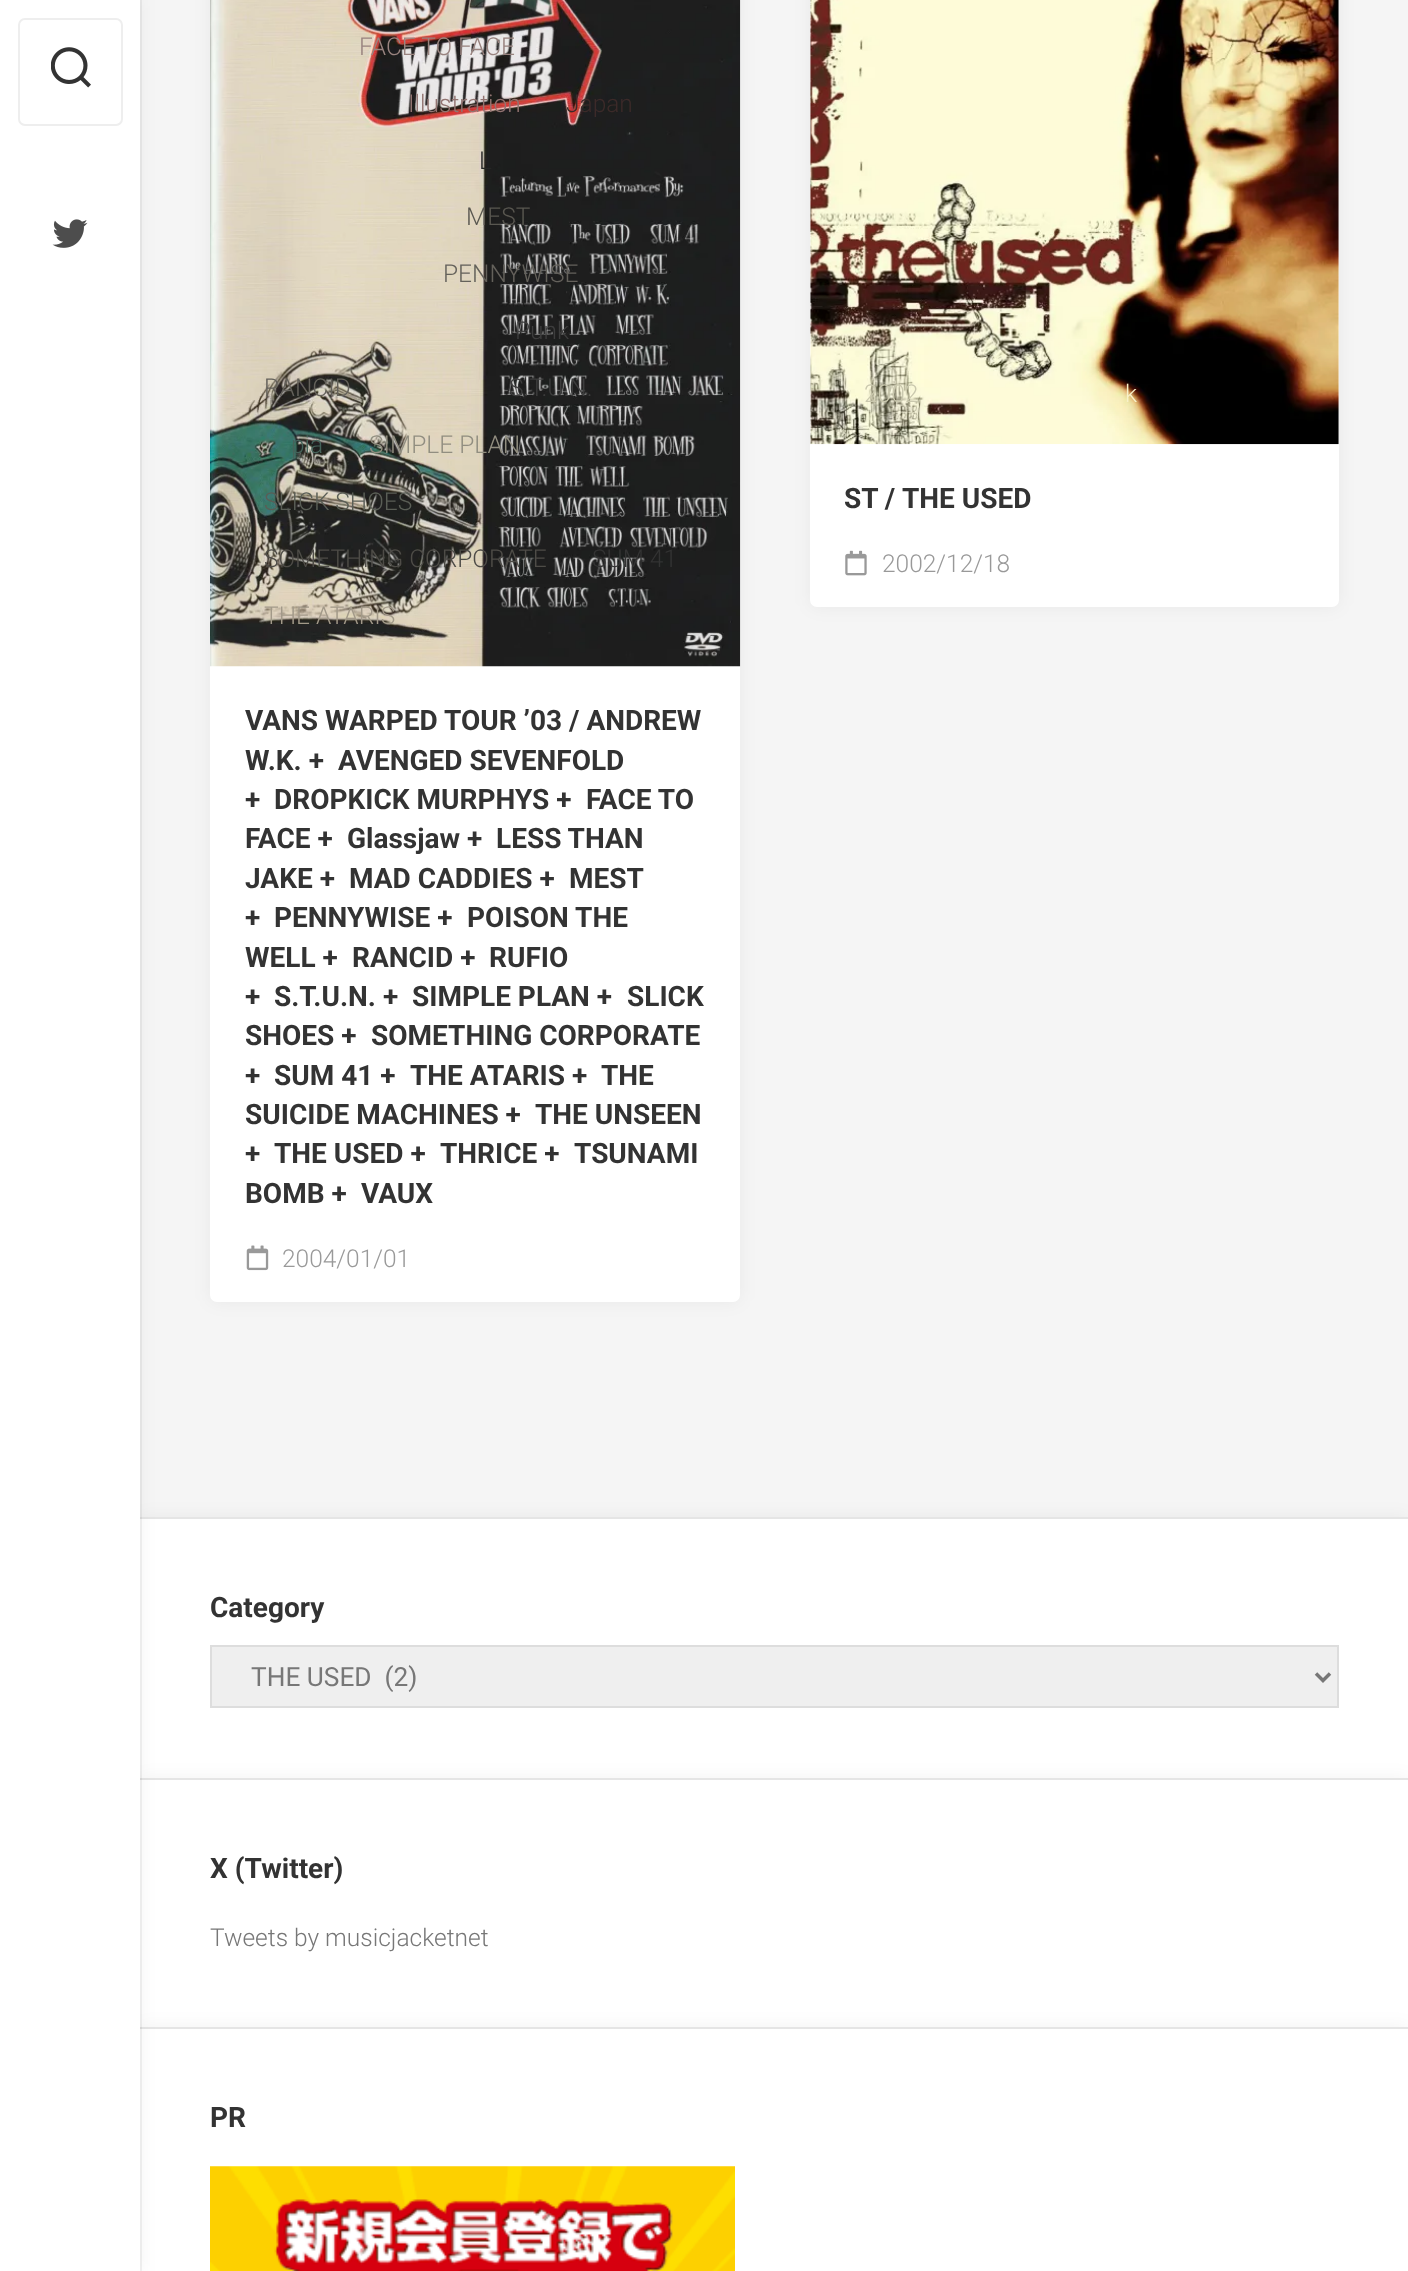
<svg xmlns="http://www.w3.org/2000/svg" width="1408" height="2271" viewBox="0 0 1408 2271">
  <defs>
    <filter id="blur1" x="-50%" y="-200%" width="200%" height="500%"><feGaussianBlur stdDeviation="9"/></filter>
  </defs>
  <rect width="100%" height="100%" fill="#f5f5f5"/>
  <rect x="140" y="1517" width="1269" height="261" fill="#000000" fill-opacity="0.05" filter="url(#blur1)"/>
  <rect x="140" y="1519" width="1268" height="259" fill="#ffffff"/>
  <rect x="140" y="1517" width="1268" height="2" fill="#e5e5e5"/>
  <rect x="140" y="1778" width="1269" height="249" fill="#000000" fill-opacity="0.05" filter="url(#blur1)"/>
  <rect x="140" y="1780" width="1268" height="247" fill="#ffffff"/>
  <rect x="140" y="1778" width="1268" height="2" fill="#e5e5e5"/>
  <rect x="140" y="2027" width="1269" height="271" fill="#000000" fill-opacity="0.05" filter="url(#blur1)"/>
  <rect x="140" y="2029" width="1268" height="242" fill="#ffffff"/>
  <rect x="140" y="2027" width="1268" height="2" fill="#e5e5e5"/>
  <path d="M2 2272H142V0H140V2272Z" fill="#000000" fill-opacity="0.05"/>
  <rect x="0" y="0" width="140" height="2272" fill="#000000" fill-opacity="0.05" filter="url(#blur1)"/>
  <rect x="0" y="0" width="140" height="2271" fill="#ffffff"/>
  <rect x="19" y="19" width="103" height="106" rx="6" fill="none" stroke="#eeeeee" stroke-width="2"/>
  <image x="51" y="47" width="40" height="41" href="img1.png"/>
  <image x="52" y="219" width="36" height="29" href="img2.png"/>
  <rect x="210" y="-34" width="530" height="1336" rx="7" fill="#000000" fill-opacity="0.05" filter="url(#blur1)"/>
  <rect x="210" y="-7" width="530" height="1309" rx="7" fill="#ffffff"/>
  <image x="210" y="0" width="531" height="667" href="img3.png"/>
  <text x="359" y="55" font-family="Roboto" font-size="24.5" font-weight="300" fill="#99837f">FACE TO FACE</text>
  <text x="408" y="112" font-family="Roboto" font-size="24.5" font-weight="300" fill="#927471">Illustration</text>
  <text x="566" y="112" font-family="Roboto" font-size="24.5" font-weight="300" fill="#3c2a29">Japan</text>
  <text x="479" y="169" font-family="Roboto" font-size="24.5" font-weight="300" fill="#262625">L</text>
  <text x="466" y="225" font-family="Roboto" font-size="24.5" font-weight="300" fill="#595750">MEST</text>
  <text x="443" y="282" font-family="Roboto" font-size="24.5" font-weight="300" fill="#64615b">PENNYWISE</text>
  <text x="515" y="339" font-family="Roboto" font-size="24.5" font-weight="300" fill="#3d3d3d">Punk</text>
  <text x="264" y="396" font-family="Roboto" font-size="24.5" font-weight="300" fill="#64615b">RANCID</text>
  <text x="509" y="396" font-family="Roboto" font-size="24.5" font-weight="300" fill="#3d3d3d">S.T.U.N.</text>
  <text x="291" y="453" font-family="Roboto" font-size="24.5" font-weight="300" fill="#45635a">pia</text>
  <text x="369" y="453" font-family="Roboto" font-size="24.5" font-weight="300" fill="#918e80">SIMPLE PLAN</text>
  <text x="264" y="510" font-family="Roboto" font-size="24.5" font-weight="300" fill="#5a5e56">SLICK SHOES</text>
  <text x="264" y="567" font-family="Roboto" font-size="24.5" font-weight="300" fill="#4e4c47">SOMETHING CORPORATE</text>
  <text x="592" y="567" font-family="Roboto" font-size="24.5" font-weight="300" fill="#333333">SUM 41</text>
  <text x="264" y="624" font-family="Roboto" font-size="24.5" font-weight="300" fill="#a29989">THE ATARIS</text>
  <text x="245" y="730" font-family="Roboto" font-size="28" font-weight="bold" fill="#333333">VANS WARPED TOUR ’03 / ANDREW</text>
  <text x="245" y="770" font-family="Roboto" font-size="28" font-weight="bold" fill="#333333">W.K. +</text>
  <text x="338" y="770" font-family="Roboto" font-size="28" font-weight="bold" fill="#333333">AVENGED SEVENFOLD</text>
  <text x="245" y="809" font-family="Roboto" font-size="28" font-weight="bold" fill="#333333">+</text>
  <text x="274" y="809" font-family="Roboto" font-size="28" font-weight="bold" fill="#333333">DROPKICK MURPHYS +</text>
  <text x="586" y="809" font-family="Roboto" font-size="28" font-weight="bold" fill="#333333">FACE TO</text>
  <text x="245" y="848" font-family="Roboto" font-size="28" font-weight="bold" fill="#333333">FACE +</text>
  <text x="347" y="848" font-family="Roboto" font-size="28" font-weight="bold" fill="#333333">Glassjaw +</text>
  <text x="496" y="848" font-family="Roboto" font-size="28" font-weight="bold" fill="#333333">LESS THAN</text>
  <text x="245" y="888" font-family="Roboto" font-size="28" font-weight="bold" fill="#333333">JAKE +</text>
  <text x="349" y="888" font-family="Roboto" font-size="28" font-weight="bold" fill="#333333">MAD CADDIES +</text>
  <text x="569" y="888" font-family="Roboto" font-size="28" font-weight="bold" fill="#333333">MEST</text>
  <text x="245" y="927" font-family="Roboto" font-size="28" font-weight="bold" fill="#333333">+</text>
  <text x="274" y="927" font-family="Roboto" font-size="28" font-weight="bold" fill="#333333">PENNYWISE +</text>
  <text x="467" y="927" font-family="Roboto" font-size="28" font-weight="bold" fill="#333333">POISON THE</text>
  <text x="245" y="967" font-family="Roboto" font-size="28" font-weight="bold" fill="#333333">WELL +</text>
  <text x="352" y="967" font-family="Roboto" font-size="28" font-weight="bold" fill="#333333">RANCID +</text>
  <text x="489" y="967" font-family="Roboto" font-size="28" font-weight="bold" fill="#333333">RUFIO</text>
  <text x="245" y="1006" font-family="Roboto" font-size="28" font-weight="bold" fill="#333333">+</text>
  <text x="274" y="1006" font-family="Roboto" font-size="28" font-weight="bold" fill="#333333">S.T.U.N. +</text>
  <text x="412" y="1006" font-family="Roboto" font-size="28" font-weight="bold" fill="#333333">SIMPLE PLAN +</text>
  <text x="627" y="1006" font-family="Roboto" font-size="28" font-weight="bold" fill="#333333">SLICK</text>
  <text x="245" y="1045" font-family="Roboto" font-size="28" font-weight="bold" fill="#333333">SHOES +</text>
  <text x="371" y="1045" font-family="Roboto" font-size="28" font-weight="bold" fill="#333333">SOMETHING CORPORATE</text>
  <text x="245" y="1085" font-family="Roboto" font-size="28" font-weight="bold" fill="#333333">+</text>
  <text x="274" y="1085" font-family="Roboto" font-size="28" font-weight="bold" fill="#333333">SUM 41 +</text>
  <text x="410" y="1085" font-family="Roboto" font-size="28" font-weight="bold" fill="#333333">THE ATARIS +</text>
  <text x="601" y="1085" font-family="Roboto" font-size="28" font-weight="bold" fill="#333333">THE</text>
  <text x="245" y="1124" font-family="Roboto" font-size="28" font-weight="bold" fill="#333333">SUICIDE MACHINES +</text>
  <text x="535" y="1124" font-family="Roboto" font-size="28" font-weight="bold" fill="#333333">THE UNSEEN</text>
  <text x="245" y="1163" font-family="Roboto" font-size="28" font-weight="bold" fill="#333333">+</text>
  <text x="274" y="1163" font-family="Roboto" font-size="28" font-weight="bold" fill="#333333">THE USED +</text>
  <text x="440" y="1163" font-family="Roboto" font-size="28" font-weight="bold" fill="#333333">THRICE +</text>
  <text x="574" y="1163" font-family="Roboto" font-size="28" font-weight="bold" fill="#333333">TSUNAMI</text>
  <text x="245" y="1203" font-family="Roboto" font-size="28" font-weight="bold" fill="#333333">BOMB +</text>
  <text x="361" y="1203" font-family="Roboto" font-size="28" font-weight="bold" fill="#333333">VAUX</text>
  <image x="246" y="1245" width="23" height="26" href="img4.png"/>
  <text x="282" y="1267" font-family="Roboto" font-size="24.5" font-weight="300" fill="#999999">2004/01/01</text>
  <rect x="810" y="-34" width="529" height="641" rx="7" fill="#000000" fill-opacity="0.05" filter="url(#blur1)"/>
  <rect x="810" y="-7" width="529" height="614" rx="7" fill="#ffffff"/>
  <image x="810" y="0" width="529" height="445" href="img5.png"/>
  <text x="864" y="402" font-family="Roboto" font-size="24.5" font-weight="300" fill="#cac8ae">2002</text>
  <text x="1125" y="402" font-family="Roboto" font-size="24.5" font-weight="300" fill="#f8f1c9">k</text>
  <text x="844" y="508" font-family="Roboto" font-size="28" font-weight="bold" fill="#333333">ST /</text>
  <text x="902" y="508" font-family="Roboto" font-size="28" font-weight="bold" fill="#333333">THE USED</text>
  <image x="845" y="550" width="22" height="26" href="img6.png"/>
  <text x="882" y="572" font-family="Roboto" font-size="24.5" font-weight="300" fill="#999999">2002/12/18</text>
  <text x="210" y="1617" font-family="Roboto" font-size="28" font-weight="bold" fill="#333333">Category</text>
  <rect x="211" y="1646" width="1127" height="61" fill="#efefef" stroke="#dddddd" stroke-width="2"/>
  <path d="M1316 1673.5L1323 1680.5L1330 1673.5" fill="none" stroke="#777777" stroke-width="3.5"/>
  <text x="251" y="1686" font-family="Roboto" font-size="26.25" fill="#777777" xml:space="preserve">THE USED  (2)</text>
  <text x="210" y="1878" font-family="Roboto" font-size="28" font-weight="bold" fill="#333333">X (Twitter)</text>
  <text x="210" y="1946" font-family="Roboto" font-size="24.5" font-weight="300" fill="#777777">Tweets by musicjacketnet</text>
  <text x="210" y="2127" font-family="Roboto" font-size="28" font-weight="bold" fill="#333333">PR</text>
  <image x="210" y="2166" width="525" height="105" href="img7.png"/>
</svg>
